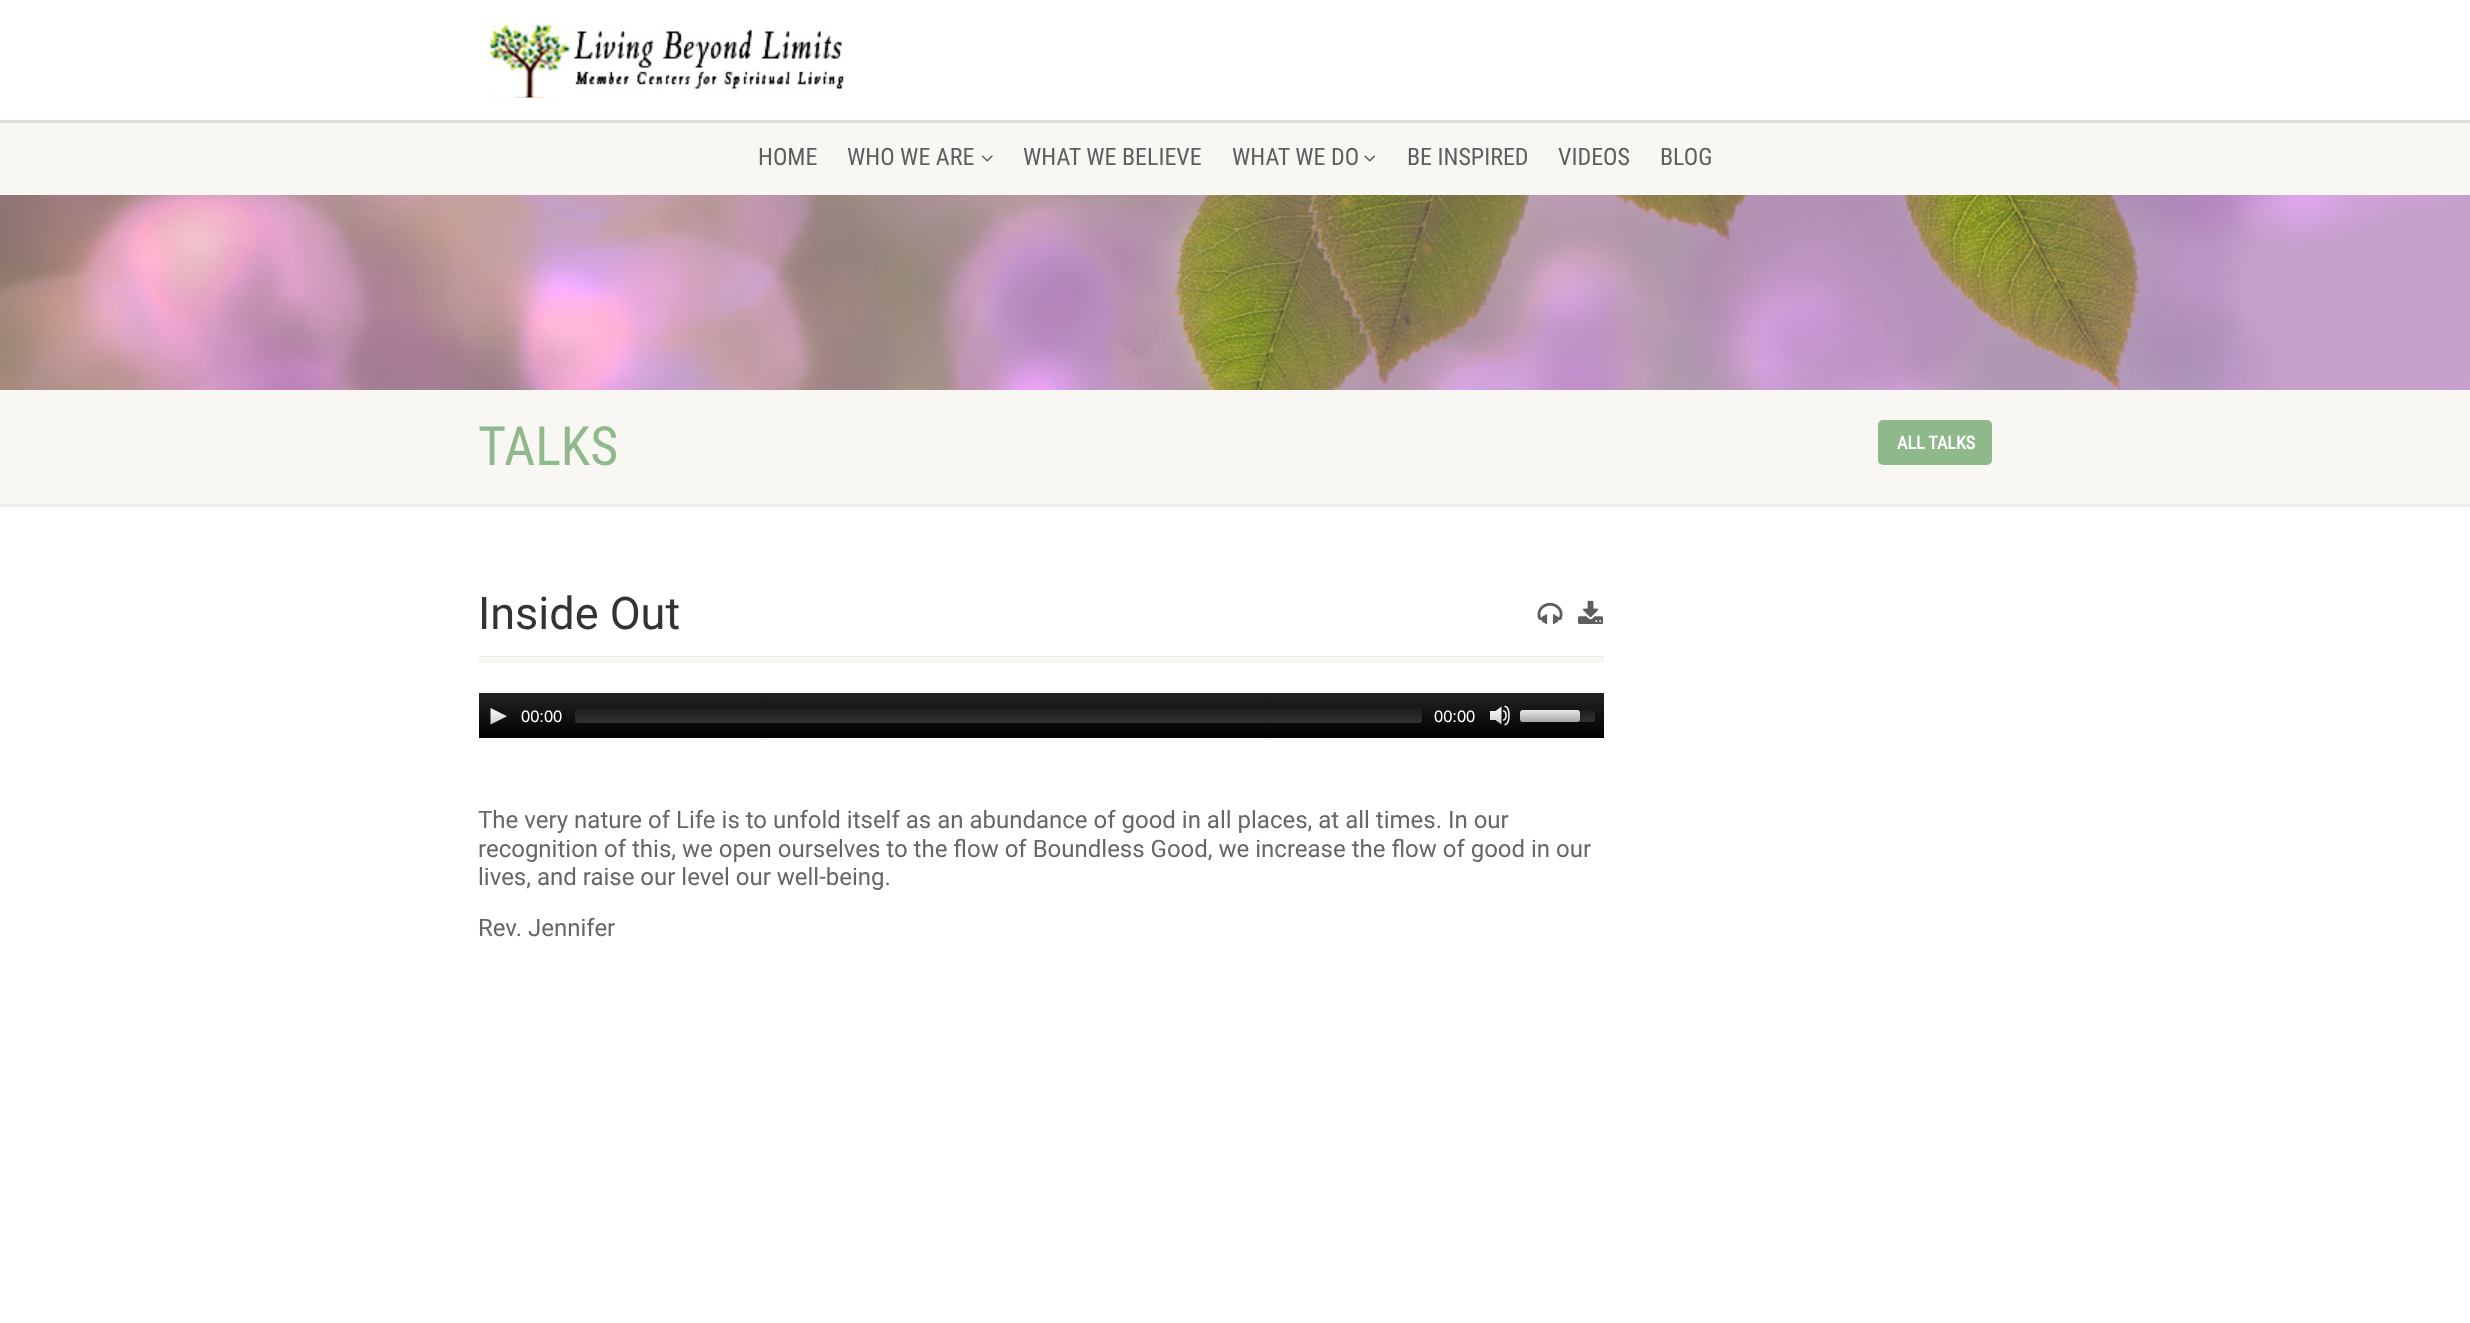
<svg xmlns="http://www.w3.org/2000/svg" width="2470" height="1323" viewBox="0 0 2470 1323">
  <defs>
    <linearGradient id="g1" gradientUnits="userSpaceOnUse" x1="1041" y1="693" x2="1041" y2="738"><stop offset="0" stop-color="#232323"/><stop offset="1" stop-color="#000000"/></linearGradient>
    <linearGradient id="g2" gradientUnits="userSpaceOnUse" x1="998" y1="708" x2="998" y2="723"><stop offset="0" stop-color="#1e1e1e" stop-opacity="0.8"/><stop offset="1" stop-color="#3c3c3c" stop-opacity="0.8"/></linearGradient>
    <linearGradient id="g3" gradientUnits="userSpaceOnUse" x1="1557" y1="710" x2="1557" y2="722"><stop offset="0" stop-color="#1e1e1e" stop-opacity="0.8"/><stop offset="1" stop-color="#3c3c3c" stop-opacity="0.8"/></linearGradient>
    <linearGradient id="g4" gradientUnits="userSpaceOnUse" x1="1550" y1="710" x2="1550" y2="722"><stop offset="0" stop-color="#ffffff" stop-opacity="0.9"/><stop offset="1" stop-color="#c8c8c8" stop-opacity="0.8"/></linearGradient>
  </defs>
  <rect width="100%" height="100%" fill="#ffffff"/>
  <path d="M0 120V123H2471V3H2470V120Z" fill="#dfdedb"/>
  <image x="488" y="23" width="356" height="75" href="img1.png"/>
  <rect x="0" y="123" width="2470" height="72" fill="#f8f7f3"/>
  <text x="758" y="165" font-family="Roboto Condensed" font-size="24" fill="#5e5e5e">HOME</text>
  <text x="847" y="165" font-family="Roboto Condensed" font-size="24" fill="#5e5e5e">WHO WE ARE</text>
  <image x="981" y="155" width="12" height="7" href="img2.png"/>
  <text x="1023" y="165" font-family="Roboto Condensed" font-size="24" fill="#5e5e5e">WHAT WE BELIEVE</text>
  <text x="1232" y="165" font-family="Roboto Condensed" font-size="24" fill="#5e5e5e">WHAT WE DO</text>
  <image x="1364" y="155" width="12" height="7" href="img3.png"/>
  <text x="1407" y="165" font-family="Roboto Condensed" font-size="24" fill="#5e5e5e">BE INSPIRED</text>
  <text x="1558" y="165" font-family="Roboto Condensed" font-size="24" fill="#5e5e5e">VIDEOS</text>
  <text x="1660" y="165" font-family="Roboto Condensed" font-size="24" fill="#5e5e5e">BLOG</text>
  <image x="0" y="195" width="2470" height="195" href="img4.png"/>
  <path d="M0 504V507H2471V393H2470V504Z" fill="#ededed"/>
  <rect x="0" y="390" width="2470" height="114" fill="#f8f7f3"/>
  <text x="478" y="465" font-family="Roboto Condensed" font-size="54" fill="#8fb98b">TALKS</text>
  <rect x="1878" y="420" width="114" height="45" rx="5" fill="#8fb98b"/>
  <text x="1897" y="449" font-family="Roboto Condensed" font-size="18" font-weight="bold" fill="#ffffff">ALL TALKS</text>
  <rect x="479" y="656" width="1125" height="1" fill="#eceae4"/>
  <text x="478" y="629" font-family="Roboto" font-size="45" fill="#333333">Inside Out</text>
  <image x="1537" y="602" width="26" height="22" href="img5.png"/>
  <image x="1578" y="600" width="26" height="24" href="img6.png"/>
  <rect x="479" y="657" width="1125" height="6" fill="#f8f7f3"/>
  <rect x="479" y="693" width="1125" height="45" fill="url(#g1)"/>
  <image x="490" y="708" width="17" height="17" href="img7.png"/>
  <text x="521" y="722" font-family="Liberation Sans" font-size="16.5" fill="#ffffff">00:00</text>
  <rect x="575" y="708" width="847" height="15" rx="3" fill="url(#g2)"/>
  <text x="1434" y="722" font-family="Liberation Sans" font-size="16.5" fill="#ffffff">00:00</text>
  <image x="1490" y="705" width="20" height="21" href="img8.png"/>
  <rect x="1520" y="710" width="75" height="12" rx="3" fill="url(#g3)"/>
  <rect x="1520" y="710" width="60" height="12" rx="3" fill="url(#g4)"/>
  <text x="478" y="828" font-family="Roboto" font-size="24" fill="#666666">The very nature of Life is to unfold itself as an abundance of good in all places, at all times. In our</text>
  <text x="478" y="857" font-family="Roboto" font-size="24" fill="#666666">recognition of this, we open ourselves to the flow of Boundless Good, we increase the flow of good in our</text>
  <text x="478" y="885" font-family="Roboto" font-size="24" fill="#666666">lives, and raise our level our well-being.</text>
  <text x="478" y="936" font-family="Roboto" font-size="24" fill="#666666">Rev. Jennifer</text>
</svg>
